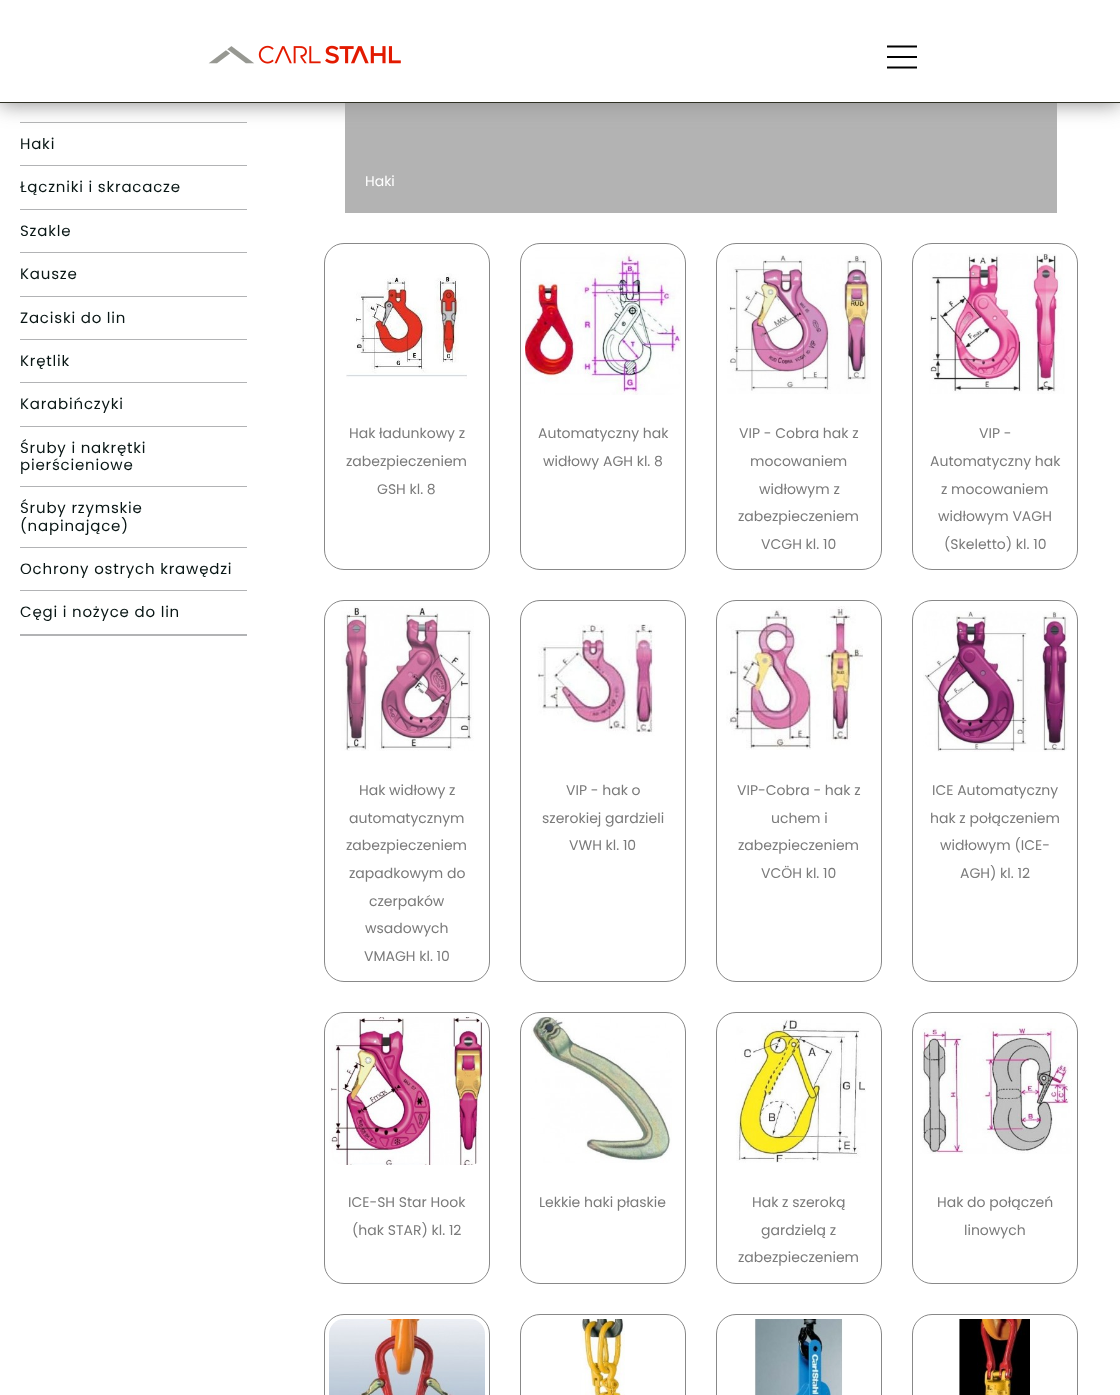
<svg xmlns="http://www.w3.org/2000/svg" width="1120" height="1395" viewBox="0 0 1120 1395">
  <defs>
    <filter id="blur1" x="-50%" y="-200%" width="200%" height="500%"><feGaussianBlur stdDeviation="10"/></filter>
  </defs>
  <rect width="100%" height="100%" fill="#ffffff"/>
  <rect x="20" y="122" width="227" height="1" fill="#b2b3b5"/>
  <rect x="345" y="103" width="712" height="110" fill="#b3b3b3"/>
  <rect x="0" y="2" width="1120" height="103" fill="#979797" filter="url(#blur1)"/>
  <rect x="0" y="0" width="1120" height="102" fill="#ffffff"/>
  <rect x="0" y="102" width="1120" height="1" fill="#2f3124"/>
  <image x="208" y="45" width="193" height="19" href="img1.png"/>
  <path d="M887 46.5H917" fill="none" stroke="#000000" stroke-width="2"/>
  <rect x="887" y="56" width="30" height="2" fill="#000000"/>
  <path d="M887 67.5H917" fill="none" stroke="#000000" stroke-width="2"/>
  <rect x="20" y="634" width="227" height="2" fill="#b2b3b5"/>
  <rect x="20" y="165" width="227" height="1" fill="#b2b3b5"/>
  <text x="20" y="149" font-family="Poppins" font-size="15" letter-spacing="0.8" fill="#081514">Haki</text>
  <rect x="20" y="209" width="227" height="1" fill="#b2b3b5"/>
  <text x="20" y="192" font-family="Poppins" font-size="15" letter-spacing="0.8" fill="#081514">Łączniki i skracacze</text>
  <rect x="20" y="252" width="227" height="1" fill="#b2b3b5"/>
  <text x="20" y="236" font-family="Poppins" font-size="15" letter-spacing="0.8" fill="#081514">Szakle</text>
  <rect x="20" y="296" width="227" height="1" fill="#b2b3b5"/>
  <text x="20" y="279" font-family="Poppins" font-size="15" letter-spacing="0.8" fill="#081514">Kausze</text>
  <rect x="20" y="339" width="227" height="1" fill="#b2b3b5"/>
  <text x="20" y="323" font-family="Poppins" font-size="15" letter-spacing="0.8" fill="#081514">Zaciski do lin</text>
  <rect x="20" y="382" width="227" height="1" fill="#b2b3b5"/>
  <text x="20" y="366" font-family="Poppins" font-size="15" letter-spacing="0.8" fill="#081514">Krętlik</text>
  <rect x="20" y="426" width="227" height="1" fill="#b2b3b5"/>
  <text x="20" y="409" font-family="Poppins" font-size="15" letter-spacing="0.8" fill="#081514">Karabińczyki</text>
  <rect x="20" y="486" width="227" height="1" fill="#b2b3b5"/>
  <text x="20" y="453" font-family="Poppins" font-size="15" letter-spacing="0.8" fill="#081514">Śruby i nakrętki</text>
  <text x="20" y="470" font-family="Poppins" font-size="15" letter-spacing="0.8" fill="#081514">pierścieniowe</text>
  <rect x="20" y="547" width="227" height="1" fill="#b2b3b5"/>
  <text x="20" y="513" font-family="Poppins" font-size="15" letter-spacing="0.8" fill="#081514">Śruby rzymskie</text>
  <text x="20" y="531" font-family="Poppins" font-size="15" letter-spacing="0.8" fill="#081514">(napinające)</text>
  <rect x="20" y="590" width="227" height="1" fill="#b2b3b5"/>
  <text x="20" y="574" font-family="Poppins" font-size="15" letter-spacing="0.8" fill="#081514">Ochrony ostrych krawędzi</text>
  <text x="20" y="617" font-family="Poppins" font-size="15" letter-spacing="0.8" fill="#081514">Cęgi i nożyce do lin</text>
  <text x="365" y="186" font-family="Poppins" font-size="14" fill="#ffffff">Haki</text>
  <rect x="324.5" y="243.5" width="165" height="326" rx="19.5" fill="none" stroke="#888888"/>
  <image x="346" y="273" width="121" height="106" href="img2.png"/>
  <text x="349" y="438" font-family="Poppins" font-size="14" fill="#7a7a7a">Hak ładunkowy z</text>
  <text x="346" y="466" font-family="Poppins" font-size="14" fill="#7a7a7a">zabezpieczeniem</text>
  <text x="377" y="494" font-family="Poppins" font-size="14" fill="#7a7a7a">GSH kl. 8</text>
  <rect x="520.5" y="243.5" width="165" height="326" rx="19.5" fill="none" stroke="#888888"/>
  <image x="525" y="250" width="156" height="145" href="img3.png"/>
  <text x="538" y="438" font-family="Poppins" font-size="14" fill="#7a7a7a">Automatyczny hak</text>
  <text x="543" y="466" font-family="Poppins" font-size="14" fill="#7a7a7a">widłowy AGH kl. 8</text>
  <rect x="716.5" y="243.5" width="165" height="326" rx="19.5" fill="none" stroke="#888888"/>
  <image x="727" y="255" width="144" height="139" href="img4.png"/>
  <text x="739" y="438" font-family="Poppins" font-size="14" fill="#7a7a7a">VIP - Cobra hak z</text>
  <text x="750" y="466" font-family="Poppins" font-size="14" fill="#7a7a7a">mocowaniem</text>
  <text x="759" y="494" font-family="Poppins" font-size="14" fill="#7a7a7a">widłowym z</text>
  <text x="738" y="521" font-family="Poppins" font-size="14" fill="#7a7a7a">zabezpieczeniem</text>
  <text x="761" y="549" font-family="Poppins" font-size="14" fill="#7a7a7a">VCGH kl. 10</text>
  <rect x="912.5" y="243.5" width="165" height="326" rx="19.5" fill="none" stroke="#888888"/>
  <image x="929" y="253" width="136" height="141" href="img5.png"/>
  <text x="979" y="438" font-family="Poppins" font-size="14" fill="#7a7a7a">VIP -</text>
  <text x="930" y="466" font-family="Poppins" font-size="14" fill="#7a7a7a">Automatyczny hak</text>
  <text x="941" y="494" font-family="Poppins" font-size="14" fill="#7a7a7a">z mocowaniem</text>
  <text x="938" y="521" font-family="Poppins" font-size="14" fill="#7a7a7a">widłowym VAGH</text>
  <text x="944" y="549" font-family="Poppins" font-size="14" fill="#7a7a7a">(Skeletto) kl. 10</text>
  <rect x="324.5" y="600.5" width="165" height="381" rx="19.5" fill="none" stroke="#888888"/>
  <image x="341" y="606" width="133" height="145" href="img6.png"/>
  <text x="359" y="795" font-family="Poppins" font-size="14" fill="#7a7a7a">Hak widłowy z</text>
  <text x="349" y="823" font-family="Poppins" font-size="14" fill="#7a7a7a">automatycznym</text>
  <text x="346" y="850" font-family="Poppins" font-size="14" fill="#7a7a7a">zabezpieczeniem</text>
  <text x="349" y="878" font-family="Poppins" font-size="14" fill="#7a7a7a">zapadkowym do</text>
  <text x="369" y="906" font-family="Poppins" font-size="14" fill="#7a7a7a">czerpaków</text>
  <text x="365" y="933" font-family="Poppins" font-size="14" fill="#7a7a7a">wsadowych</text>
  <text x="364" y="961" font-family="Poppins" font-size="14" fill="#7a7a7a">VMAGH kl. 10</text>
  <rect x="520.5" y="600.5" width="165" height="381" rx="19.5" fill="none" stroke="#888888"/>
  <image x="537" y="624" width="118" height="112" href="img7.png"/>
  <text x="566" y="795" font-family="Poppins" font-size="14" fill="#7a7a7a">VIP - hak o</text>
  <text x="542" y="823" font-family="Poppins" font-size="14" fill="#7a7a7a">szerokiej gardzieli</text>
  <text x="569" y="850" font-family="Poppins" font-size="14" fill="#7a7a7a">VWH kl. 10</text>
  <rect x="716.5" y="600.5" width="165" height="381" rx="19.5" fill="none" stroke="#888888"/>
  <image x="726" y="606" width="137" height="144" href="img8.png"/>
  <text x="737" y="795" font-family="Poppins" font-size="14" fill="#7a7a7a">VIP-Cobra - hak z</text>
  <text x="771" y="823" font-family="Poppins" font-size="14" fill="#7a7a7a">uchem i</text>
  <text x="738" y="850" font-family="Poppins" font-size="14" fill="#7a7a7a">zabezpieczeniem</text>
  <text x="761" y="878" font-family="Poppins" font-size="14" fill="#7a7a7a">VCÖH kl. 10</text>
  <rect x="912.5" y="600.5" width="165" height="381" rx="19.5" fill="none" stroke="#888888"/>
  <image x="923" y="611" width="147" height="141" href="img9.png"/>
  <text x="932" y="795" font-family="Poppins" font-size="14" fill="#7a7a7a">ICE Automatyczny</text>
  <text x="930" y="823" font-family="Poppins" font-size="14" fill="#7a7a7a">hak z połączeniem</text>
  <text x="940" y="850" font-family="Poppins" font-size="14" fill="#7a7a7a">widłowym (ICE-</text>
  <text x="960" y="878" font-family="Poppins" font-size="14" fill="#7a7a7a">AGH) kl. 12</text>
  <rect x="324.5" y="1012.5" width="165" height="271" rx="19.5" fill="none" stroke="#888888"/>
  <image x="329" y="1017" width="156" height="148" href="img10.png"/>
  <text x="348" y="1207" font-family="Poppins" font-size="14" fill="#7a7a7a">ICE-SH Star Hook</text>
  <text x="352" y="1235" font-family="Poppins" font-size="14" fill="#7a7a7a">(hak STAR) kl. 12</text>
  <rect x="520.5" y="1012.5" width="165" height="271" rx="19.5" fill="none" stroke="#888888"/>
  <image x="531" y="1017" width="141" height="146" href="img11.png"/>
  <text x="539" y="1207" font-family="Poppins" font-size="14" fill="#7a7a7a">Lekkie haki płaskie</text>
  <rect x="716.5" y="1012.5" width="165" height="271" rx="19.5" fill="none" stroke="#888888"/>
  <image x="735" y="1019" width="131" height="144" href="img12.png"/>
  <text x="752" y="1207" font-family="Poppins" font-size="14" fill="#7a7a7a">Hak z szeroką</text>
  <text x="761" y="1235" font-family="Poppins" font-size="14" fill="#7a7a7a">gardzielą z</text>
  <text x="738" y="1262" font-family="Poppins" font-size="14" fill="#7a7a7a">zabezpieczeniem</text>
  <rect x="912.5" y="1012.5" width="165" height="271" rx="19.5" fill="none" stroke="#888888"/>
  <image x="920" y="1023" width="152" height="131" href="img13.png"/>
  <text x="937" y="1207" font-family="Poppins" font-size="14" fill="#7a7a7a">Hak do połączeń</text>
  <text x="964" y="1235" font-family="Poppins" font-size="14" fill="#7a7a7a">linowych</text>
  <rect x="324.5" y="1314.5" width="165" height="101" rx="19.5" fill="none" stroke="#888888"/>
  <image x="329" y="1319" width="156" height="76" href="img14.png"/>
  <rect x="520.5" y="1314.5" width="165" height="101" rx="19.5" fill="none" stroke="#888888"/>
  <image x="580" y="1319" width="45" height="76" href="img15.png"/>
  <rect x="716.5" y="1314.5" width="165" height="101" rx="19.5" fill="none" stroke="#888888"/>
  <image x="754" y="1319" width="89" height="76" href="img16.png"/>
  <rect x="912.5" y="1314.5" width="165" height="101" rx="19.5" fill="none" stroke="#888888"/>
  <image x="959" y="1319" width="71" height="76" href="img17.png"/>
</svg>
